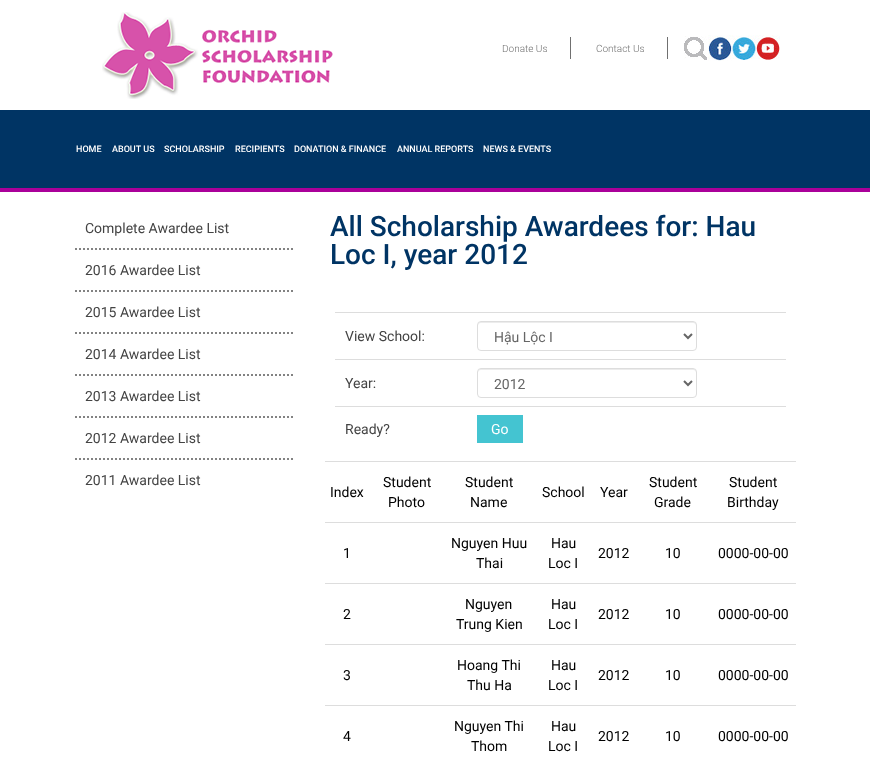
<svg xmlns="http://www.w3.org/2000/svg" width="870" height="759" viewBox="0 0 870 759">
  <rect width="100%" height="100%" fill="#ffffff"/>
  <image x="102" y="12" width="231" height="87" href="img1.png"/>
  <rect x="570" y="37" width="1" height="22" fill="#707070"/>
  <text x="502" y="52" font-family="Roboto" font-size="10" font-weight="300" fill="#707070">Donate Us</text>
  <rect x="667" y="37" width="1" height="22" fill="#707070"/>
  <text x="596" y="52" font-family="Roboto" font-size="10" font-weight="300" fill="#707070">Contact Us</text>
  <image x="684" y="36" width="23" height="24" href="img2.png"/>
  <image x="708" y="35" width="24" height="26" href="img3.png"/>
  <image x="732" y="35" width="24" height="25" href="img4.png"/>
  <image x="756" y="35" width="24" height="25" href="img5.png"/>
  <rect x="0" y="110" width="870" height="78" fill="#003464"/>
  <rect x="0" y="188" width="870" height="4" fill="#aa0099"/>
  <text x="76" y="152" font-family="Roboto" font-size="9" font-weight="500" fill="#ffffff">HOME</text>
  <text x="112" y="152" font-family="Roboto" font-size="9" font-weight="500" fill="#ffffff">ABOUT US</text>
  <text x="164" y="152" font-family="Roboto" font-size="9" font-weight="500" fill="#ffffff">SCHOLARSHIP</text>
  <text x="235" y="152" font-family="Roboto" font-size="9" font-weight="500" fill="#ffffff">RECIPIENTS</text>
  <text x="294" y="152" font-family="Roboto" font-size="9" font-weight="500" fill="#ffffff">DONATION &amp; FINANCE</text>
  <text x="397" y="152" font-family="Roboto" font-size="9" font-weight="500" fill="#ffffff">ANNUAL REPORTS</text>
  <text x="483" y="152" font-family="Roboto" font-size="9" font-weight="500" fill="#ffffff">NEWS &amp; EVENTS</text>
  <path d="M75 249H295" fill="none" stroke="#828282" stroke-width="2" stroke-dasharray="2 2"/>
  <text x="85" y="233" font-family="Roboto" font-size="14" fill="#444444">Complete Awardee List</text>
  <path d="M75 291H295" fill="none" stroke="#828282" stroke-width="2" stroke-dasharray="2 2"/>
  <text x="85" y="275" font-family="Roboto" font-size="14" fill="#444444">2016 Awardee List</text>
  <path d="M75 333H295" fill="none" stroke="#828282" stroke-width="2" stroke-dasharray="2 2"/>
  <text x="85" y="317" font-family="Roboto" font-size="14" fill="#444444">2015 Awardee List</text>
  <path d="M75 375H295" fill="none" stroke="#828282" stroke-width="2" stroke-dasharray="2 2"/>
  <text x="85" y="359" font-family="Roboto" font-size="14" fill="#444444">2014 Awardee List</text>
  <path d="M75 417H295" fill="none" stroke="#828282" stroke-width="2" stroke-dasharray="2 2"/>
  <text x="85" y="401" font-family="Roboto" font-size="14" fill="#444444">2013 Awardee List</text>
  <path d="M75 459H295" fill="none" stroke="#828282" stroke-width="2" stroke-dasharray="2 2"/>
  <text x="85" y="443" font-family="Roboto" font-size="14" fill="#444444">2012 Awardee List</text>
  <text x="85" y="485" font-family="Roboto" font-size="14" fill="#444444">2011 Awardee List</text>
  <text x="330" y="236" font-family="Roboto" font-size="28" font-weight="500" fill="#003464">All Scholarship Awardees for: Hau</text>
  <text x="330" y="264" font-family="Roboto" font-size="28" font-weight="500" fill="#003464">Loc I, year 2012</text>
  <text x="345" y="341" font-family="Roboto" font-size="14" fill="#444444">View School:</text>
  <rect x="335" y="312" width="451" height="1" fill="#dddddd"/>
  <path d="M481 323H693C695 323 696 324 696 326V325C696 323 695 322 693 322H481C479 322 478 323 478 325V326C478 324 479 323 481 323Z" fill="#ececec"/>
  <rect x="477.5" y="321.5" width="219" height="29" rx="3.5" fill="none" stroke="#dddddd"/>
  <path d="M684 334L688 338L692 334" fill="none" stroke="#666666" stroke-width="2"/>
  <text x="494" y="342" font-family="Roboto" font-size="14" fill="#666666">Hậu Lộc I</text>
  <text x="345" y="388" font-family="Roboto" font-size="14" fill="#444444">Year:</text>
  <rect x="335" y="359" width="451" height="1" fill="#dddddd"/>
  <path d="M481 370H693C695 370 696 371 696 373V372C696 370 695 369 693 369H481C479 369 478 370 478 372V373C478 371 479 370 481 370Z" fill="#ececec"/>
  <rect x="477.5" y="368.5" width="219" height="29" rx="3.5" fill="none" stroke="#dddddd"/>
  <path d="M684 381L688 385L692 381" fill="none" stroke="#666666" stroke-width="2"/>
  <text x="494" y="389" font-family="Roboto" font-size="14" fill="#666666">2012</text>
  <text x="345" y="434" font-family="Roboto" font-size="14" fill="#444444">Ready?</text>
  <rect x="335" y="406" width="451" height="1" fill="#dddddd"/>
  <rect x="477" y="415" width="46" height="28" fill="#44c4d1"/>
  <text x="491" y="434" font-family="Roboto" font-size="14" fill="#ffffff">Go</text>
  <text x="330" y="497" font-family="Roboto" font-size="14" fill="#000000">Index</text>
  <text x="383" y="487" font-family="Roboto" font-size="14" fill="#000000">Student</text>
  <text x="388" y="507" font-family="Roboto" font-size="14" fill="#000000">Photo</text>
  <text x="465" y="487" font-family="Roboto" font-size="14" fill="#000000">Student</text>
  <text x="470" y="507" font-family="Roboto" font-size="14" fill="#000000">Name</text>
  <text x="542" y="497" font-family="Roboto" font-size="14" fill="#000000">School</text>
  <text x="600" y="497" font-family="Roboto" font-size="14" fill="#000000">Year</text>
  <text x="649" y="487" font-family="Roboto" font-size="14" fill="#000000">Student</text>
  <text x="654" y="507" font-family="Roboto" font-size="14" fill="#000000">Grade</text>
  <rect x="325" y="461" width="471" height="1" fill="#dddddd"/>
  <text x="729" y="487" font-family="Roboto" font-size="14" fill="#000000">Student</text>
  <text x="727" y="507" font-family="Roboto" font-size="14" fill="#000000">Birthday</text>
  <text x="343" y="558" font-family="Roboto" font-size="14" fill="#000000">1</text>
  <text x="451" y="548" font-family="Roboto" font-size="14" fill="#000000">Nguyen Huu</text>
  <text x="476" y="568" font-family="Roboto" font-size="14" fill="#000000">Thai</text>
  <text x="551" y="548" font-family="Roboto" font-size="14" fill="#000000">Hau</text>
  <text x="548" y="568" font-family="Roboto" font-size="14" fill="#000000">Loc I</text>
  <text x="598" y="558" font-family="Roboto" font-size="14" fill="#000000">2012</text>
  <text x="665" y="558" font-family="Roboto" font-size="14" fill="#000000">10</text>
  <rect x="325" y="522" width="471" height="1" fill="#dddddd"/>
  <text x="718" y="558" font-family="Roboto" font-size="14" fill="#000000">0000-00-00</text>
  <text x="343" y="619" font-family="Roboto" font-size="14" fill="#000000">2</text>
  <text x="465" y="609" font-family="Roboto" font-size="14" fill="#000000">Nguyen</text>
  <text x="456" y="629" font-family="Roboto" font-size="14" fill="#000000">Trung Kien</text>
  <text x="551" y="609" font-family="Roboto" font-size="14" fill="#000000">Hau</text>
  <text x="548" y="629" font-family="Roboto" font-size="14" fill="#000000">Loc I</text>
  <text x="598" y="619" font-family="Roboto" font-size="14" fill="#000000">2012</text>
  <text x="665" y="619" font-family="Roboto" font-size="14" fill="#000000">10</text>
  <rect x="325" y="583" width="471" height="1" fill="#dddddd"/>
  <text x="718" y="619" font-family="Roboto" font-size="14" fill="#000000">0000-00-00</text>
  <text x="343" y="680" font-family="Roboto" font-size="14" fill="#000000">3</text>
  <text x="457" y="670" font-family="Roboto" font-size="14" fill="#000000">Hoang Thi</text>
  <text x="467" y="690" font-family="Roboto" font-size="14" fill="#000000">Thu Ha</text>
  <text x="551" y="670" font-family="Roboto" font-size="14" fill="#000000">Hau</text>
  <text x="548" y="690" font-family="Roboto" font-size="14" fill="#000000">Loc I</text>
  <text x="598" y="680" font-family="Roboto" font-size="14" fill="#000000">2012</text>
  <text x="665" y="680" font-family="Roboto" font-size="14" fill="#000000">10</text>
  <rect x="325" y="644" width="471" height="1" fill="#dddddd"/>
  <text x="718" y="680" font-family="Roboto" font-size="14" fill="#000000">0000-00-00</text>
  <text x="343" y="741" font-family="Roboto" font-size="14" fill="#000000">4</text>
  <text x="454" y="731" font-family="Roboto" font-size="14" fill="#000000">Nguyen Thi</text>
  <text x="471" y="751" font-family="Roboto" font-size="14" fill="#000000">Thom</text>
  <text x="551" y="731" font-family="Roboto" font-size="14" fill="#000000">Hau</text>
  <text x="548" y="751" font-family="Roboto" font-size="14" fill="#000000">Loc I</text>
  <text x="598" y="741" font-family="Roboto" font-size="14" fill="#000000">2012</text>
  <text x="665" y="741" font-family="Roboto" font-size="14" fill="#000000">10</text>
  <rect x="325" y="705" width="471" height="1" fill="#dddddd"/>
  <text x="718" y="741" font-family="Roboto" font-size="14" fill="#000000">0000-00-00</text>
</svg>
